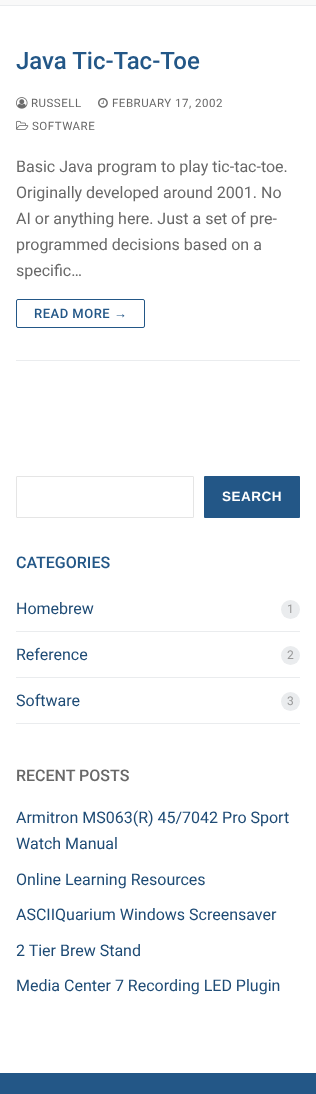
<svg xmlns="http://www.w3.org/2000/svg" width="316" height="1094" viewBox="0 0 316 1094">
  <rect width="100%" height="100%" fill="#ffffff"/>
  <rect x="0" y="0" width="316" height="5" fill="#f9f9f9"/>
  <rect x="0" y="5" width="316" height="1" fill="#eaecee"/>
  <rect x="16" y="360" width="284" height="1" fill="#eaecee"/>
  <text x="16" y="69" font-family="Roboto" font-size="24" font-weight="500" fill="#235787">Java Tic-Tac-Toe</text>
  <image x="16" y="97" width="12" height="12" href="img1.png"/>
  <text x="31" y="107" font-family="Roboto" font-size="11.5" letter-spacing="0.5" fill="#686868">RUSSELL</text>
  <image x="98" y="98" width="10" height="10" href="img2.png"/>
  <text x="112" y="107" font-family="Roboto" font-size="11.5" letter-spacing="0.5" fill="#686868">FEBRUARY 17, 2002</text>
  <image x="16" y="120" width="13" height="10" href="img3.png"/>
  <text x="32" y="130" font-family="Roboto" font-size="11.5" letter-spacing="0.5" fill="#686868">SOFTWARE</text>
  <text x="16" y="172" font-family="Roboto" font-size="16" fill="#686868">Basic Java program to play tic-tac-toe.</text>
  <text x="16" y="198" font-family="Roboto" font-size="16" fill="#686868">Originally developed around 2001. No</text>
  <text x="16" y="224" font-family="Roboto" font-size="16" fill="#686868">AI or anything here. Just a set of pre-</text>
  <text x="16" y="250" font-family="Roboto" font-size="16" fill="#686868">programmed decisions based on a</text>
  <text x="16" y="276" font-family="Roboto" font-size="16" fill="#686868">specific…</text>
  <rect x="16.5" y="299.5" width="128" height="28" rx="1.5" fill="none" stroke="#235787"/>
  <text x="34" y="318" font-family="Roboto" font-size="13" font-weight="500" letter-spacing="0.5" fill="#235787">READ MORE</text>
  <text x="114" y="318" font-family="Liberation Sans" font-size="13" letter-spacing="0.5" fill="#235787">→</text>
  <rect x="16.5" y="476.5" width="177" height="41" rx="0.5" fill="none" stroke="#e5e5e5"/>
  <rect x="204" y="476" width="96" height="42" rx="1" fill="#235787"/>
  <text x="222" y="501" font-family="Liberation Sans" font-size="13.5" font-weight="bold" letter-spacing="0.5" fill="#ffffff">SEARCH</text>
  <text x="16" y="568" font-family="Roboto" font-size="16" font-weight="500" fill="#235787">CATEGORIES</text>
  <rect x="16" y="631" width="284" height="1" fill="#eaecee"/>
  <text x="16" y="614" font-family="Roboto" font-size="16" fill="#1e4b75">Homebrew</text>
  <circle cx="290.5" cy="609.5" r="9.5" fill="#eaecee"/>
  <text x="287" y="613" font-family="Roboto" font-size="12" fill="#999999">1</text>
  <rect x="16" y="677" width="284" height="1" fill="#eaecee"/>
  <text x="16" y="660" font-family="Roboto" font-size="16" fill="#1e4b75">Reference</text>
  <circle cx="290.5" cy="655.5" r="9.5" fill="#eaecee"/>
  <text x="287" y="659" font-family="Roboto" font-size="12" fill="#999999">2</text>
  <rect x="16" y="723" width="284" height="1" fill="#eaecee"/>
  <text x="16" y="706" font-family="Roboto" font-size="16" fill="#1e4b75">Software</text>
  <circle cx="290.5" cy="701.5" r="9.5" fill="#eaecee"/>
  <text x="287" y="705" font-family="Roboto" font-size="12" fill="#999999">3</text>
  <text x="16" y="781" font-family="Roboto" font-size="16" font-weight="500" fill="#686868">RECENT POSTS</text>
  <text x="16" y="823" font-family="Roboto" font-size="16" fill="#1e4b75">Armitron MS063(R) 45/7042 Pro Sport</text>
  <text x="16" y="849" font-family="Roboto" font-size="16" fill="#1e4b75">Watch Manual</text>
  <text x="16" y="885" font-family="Roboto" font-size="16" fill="#1e4b75">Online Learning Resources</text>
  <text x="16" y="920" font-family="Roboto" font-size="16" fill="#1e4b75">ASCIIQuarium Windows Screensaver</text>
  <text x="16" y="956" font-family="Roboto" font-size="16" fill="#1e4b75">2 Tier Brew Stand</text>
  <text x="16" y="991" font-family="Roboto" font-size="16" fill="#1e4b75">Media Center 7 Recording LED Plugin</text>
  <rect x="0" y="1073" width="316" height="21" fill="#235787"/>
</svg>
